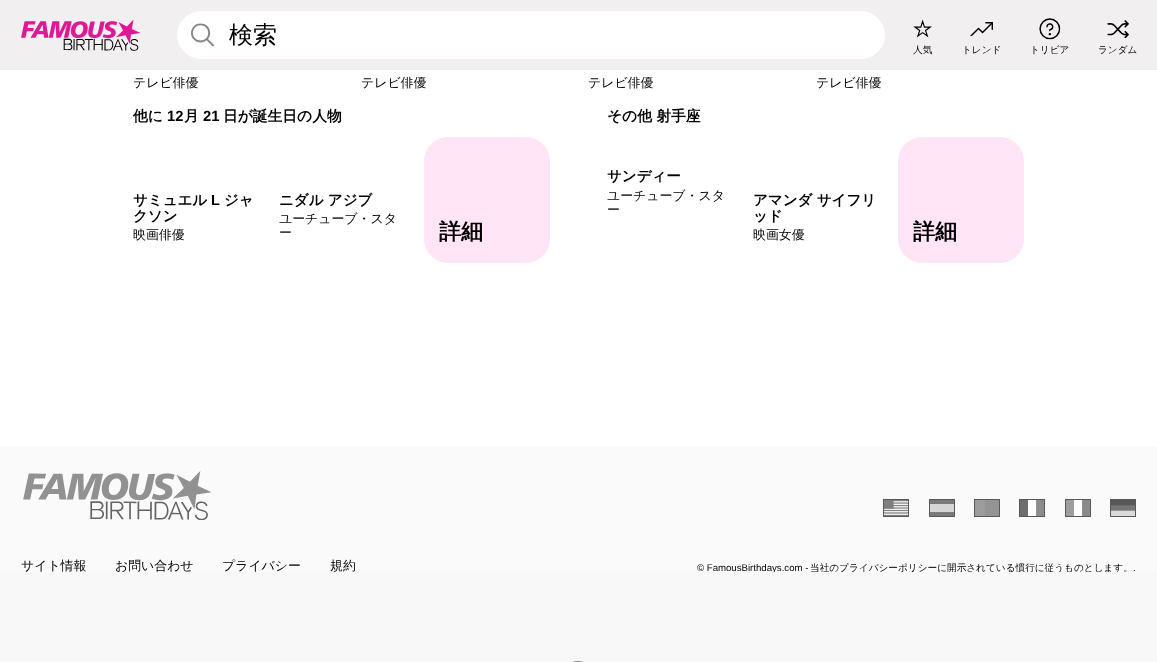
<svg xmlns="http://www.w3.org/2000/svg" width="1157" height="662" viewBox="0 0 1157 662">
  <rect width="100%" height="100%" fill="#ffffff"/>
  <rect x="0" y="0" width="1157" height="70" fill="#f1efef"/>
  <image x="21" y="19" width="120" height="32" href="img1.png"/>
  <rect x="177.5" y="11.5" width="707" height="47" rx="23.5" fill="#ffffff" stroke="#ffffff"/>
  <image x="191" y="23" width="24" height="24" href="img2.png"/>
  <text x="229" y="43" font-family="WenQuanYi Zen Hei" font-size="24" font-weight="500" fill="#000000">検索</text>
  <image x="913" y="19" width="19" height="19" href="img3.png"/>
  <text x="913" y="53" font-family="WenQuanYi Zen Hei" font-size="9.65" font-weight="500" fill="#000000">人気</text>
  <image x="970" y="22" width="23" height="14" href="img4.png"/>
  <text x="962" y="53" font-family="WenQuanYi Zen Hei" font-size="9.65" font-weight="500" fill="#000000">トレンド</text>
  <image x="1039" y="18" width="22" height="22" href="img5.png"/>
  <text x="1030" y="53" font-family="WenQuanYi Zen Hei" font-size="9.65" font-weight="500" fill="#000000">トリビア</text>
  <image x="1107" y="20" width="22" height="18" href="img6.png"/>
  <text x="1098" y="53" font-family="WenQuanYi Zen Hei" font-size="9.65" font-weight="500" fill="#000000">ランダム</text>
  <text x="133" y="87" font-family="WenQuanYi Zen Hei" font-size="12.9" font-weight="500" fill="#000000">テレビ俳優</text>
  <text x="361" y="87" font-family="WenQuanYi Zen Hei" font-size="12.9" font-weight="500" fill="#000000">テレビ俳優</text>
  <text x="588" y="87" font-family="WenQuanYi Zen Hei" font-size="12.9" font-weight="500" fill="#000000">テレビ俳優</text>
  <text x="816" y="87" font-family="WenQuanYi Zen Hei" font-size="12.9" font-weight="500" fill="#000000">テレビ俳優</text>
  <text x="133" y="121" font-family="WenQuanYi Zen Hei" font-size="14.75" font-weight="bold" fill="#000000">他に</text>
  <text x="167" y="121" font-family="Liberation Sans" font-size="14.75" font-weight="bold" fill="#000000">12</text>
  <text x="184" y="121" font-family="WenQuanYi Zen Hei" font-size="14.75" font-weight="bold" fill="#000000">月</text>
  <text x="203" y="121" font-family="Liberation Sans" font-size="14.75" font-weight="bold" fill="#000000">21</text>
  <text x="223" y="121" font-family="WenQuanYi Zen Hei" font-size="14.75" font-weight="bold" fill="#000000">日が誕生日の人物</text>
  <text x="133" y="205" font-family="WenQuanYi Zen Hei" font-size="14.5" font-weight="bold" fill="#000000">サミュエル</text>
  <text x="211" y="205" font-family="Liberation Sans" font-size="14.5" font-weight="bold" fill="#000000">L</text>
  <text x="224" y="205" font-family="WenQuanYi Zen Hei" font-size="14.5" font-weight="bold" fill="#000000">ジャ</text>
  <text x="133" y="221" font-family="WenQuanYi Zen Hei" font-size="14.5" font-weight="bold" fill="#000000">クソン</text>
  <text x="133" y="239" font-family="WenQuanYi Zen Hei" font-size="12.9" font-weight="500" fill="#000000">映画俳優</text>
  <text x="279" y="205" font-family="WenQuanYi Zen Hei" font-size="14.5" font-weight="bold" fill="#000000">ニダル アジブ</text>
  <text x="279" y="223" font-family="WenQuanYi Zen Hei" font-size="12.9" font-weight="500" fill="#000000">ユーチューブ・スタ</text>
  <text x="279" y="237" font-family="WenQuanYi Zen Hei" font-size="12.9" font-weight="500" fill="#000000">ー</text>
  <rect x="424.5" y="137.5" width="125" height="125" rx="23.5" fill="#ffe5f5" stroke="#ffe5f5"/>
  <text x="439" y="239" font-family="WenQuanYi Zen Hei" font-size="22" font-weight="bold" fill="#000000">詳細</text>
  <text x="607" y="121" font-family="WenQuanYi Zen Hei" font-size="14.75" font-weight="bold" fill="#000000">その他 射手座</text>
  <text x="607" y="181" font-family="WenQuanYi Zen Hei" font-size="14.5" font-weight="bold" fill="#000000">サンディー</text>
  <text x="607" y="200" font-family="WenQuanYi Zen Hei" font-size="12.9" font-weight="500" fill="#000000">ユーチューブ・スタ</text>
  <text x="607" y="214" font-family="WenQuanYi Zen Hei" font-size="12.9" font-weight="500" fill="#000000">ー</text>
  <text x="753" y="205" font-family="WenQuanYi Zen Hei" font-size="14.5" font-weight="bold" fill="#000000">アマンダ サイフリ</text>
  <text x="753" y="221" font-family="WenQuanYi Zen Hei" font-size="14.5" font-weight="bold" fill="#000000">ッド</text>
  <text x="753" y="239" font-family="WenQuanYi Zen Hei" font-size="12.9" font-weight="500" fill="#000000">映画女優</text>
  <rect x="898.5" y="137.5" width="125" height="125" rx="23.5" fill="#ffe5f5" stroke="#ffe5f5"/>
  <text x="913" y="239" font-family="WenQuanYi Zen Hei" font-size="22" font-weight="bold" fill="#000000">詳細</text>
  <rect x="0" y="446" width="1157" height="216" fill="#fafafa"/>
  <image x="23" y="471" width="189" height="49" href="img7.png"/>
  <rect x="883.5" y="499.5" width="25" height="17" fill="none" stroke="#585858"/>
  <image x="884" y="500" width="24" height="16" href="img8.png"/>
  <rect x="929.5" y="499.5" width="25" height="17" fill="none" stroke="#585858"/>
  <image x="930" y="500" width="24" height="16" href="img9.png"/>
  <rect x="974.5" y="499.5" width="25" height="17" fill="none" stroke="#585858"/>
  <image x="975" y="500" width="24" height="16" href="img10.png"/>
  <rect x="1019.5" y="499.5" width="25" height="17" fill="none" stroke="#585858"/>
  <image x="1020" y="500" width="24" height="16" href="img11.png"/>
  <rect x="1065.5" y="499.5" width="25" height="17" fill="none" stroke="#585858"/>
  <image x="1066" y="500" width="24" height="16" href="img12.png"/>
  <rect x="1110.5" y="499.5" width="25" height="17" fill="none" stroke="#585858"/>
  <image x="1111" y="500" width="24" height="16" href="img13.png"/>
  <text x="21" y="570" font-family="WenQuanYi Zen Hei" font-size="12.9" font-weight="500" fill="#000000">サイト情報</text>
  <text x="115" y="570" font-family="WenQuanYi Zen Hei" font-size="12.9" font-weight="500" fill="#000000">お問い合わせ</text>
  <text x="222" y="570" font-family="WenQuanYi Zen Hei" font-size="12.9" font-weight="500" fill="#000000">プライバシー</text>
  <text x="330" y="570" font-family="WenQuanYi Zen Hei" font-size="12.9" font-weight="500" fill="#000000">規約</text>
  <text x="697" y="571" font-family="Liberation Sans" font-size="9.65" fill="#000000">© FamousBirthdays.com -</text>
  <text x="810" y="571" font-family="WenQuanYi Zen Hei" font-size="9.65" font-weight="500" fill="#000000">当社のプライバシーポリシーに開示されている慣行に従うものとします。</text>
  <text x="1133" y="571" font-family="Liberation Sans" font-size="9.65" fill="#000000">.</text>
  <rect x="0" y="658" width="1157" height="1" fill="#e6e6e6"/>
  <rect x="0" y="572" width="1157" height="90" fill="#f7f7f7" fill-opacity="0.9"/>
  <rect x="567.5" y="661.5" width="21" height="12" rx="10.5" fill="none" stroke="#888888"/>
</svg>
